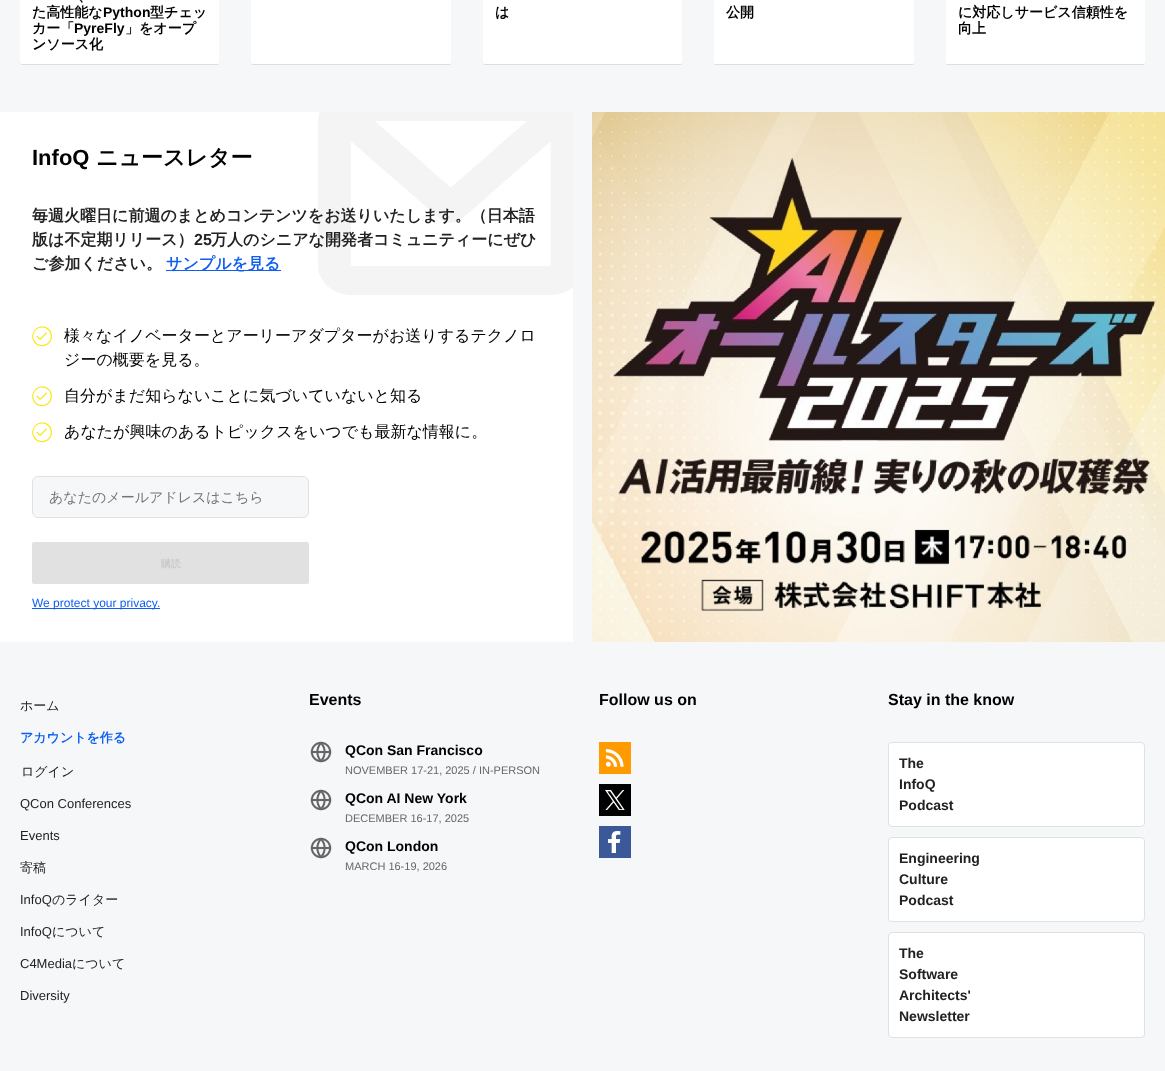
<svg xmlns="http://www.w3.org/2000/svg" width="1165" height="1071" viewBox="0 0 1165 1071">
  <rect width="100%" height="100%" fill="#f5f7f8"/>
  <path d="M20 62C20 63 20 65 22 65H217C219 65 219 63 219 62C219 63 218 64 217 64H22C21 64 20 63 20 62Z" fill="#dddedf"/>
  <rect x="20" y="-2" width="199" height="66" rx="2" fill="#ffffff"/>
  <text x="78" y="1" font-family="WenQuanYi Zen Hei" font-size="14" font-weight="bold" fill="#000000">、</text>
  <text x="32" y="17" font-family="WenQuanYi Zen Hei" font-size="14" font-weight="bold" fill="#000000">た高性能な</text>
  <text x="103" y="17" font-family="Liberation Sans" font-size="14" font-weight="bold" fill="#000000">Python</text>
  <text x="150" y="17" font-family="WenQuanYi Zen Hei" font-size="14" font-weight="bold" fill="#000000">型チェッ</text>
  <text x="32" y="33" font-family="WenQuanYi Zen Hei" font-size="14" font-weight="bold" fill="#000000">カー「</text>
  <text x="74" y="33" font-family="Liberation Sans" font-size="14" font-weight="bold" fill="#000000">PyreFly</text>
  <text x="125" y="33" font-family="WenQuanYi Zen Hei" font-size="14" font-weight="bold" fill="#000000">」をオープ</text>
  <text x="32" y="49" font-family="WenQuanYi Zen Hei" font-size="14" font-weight="bold" fill="#000000">ンソース化</text>
  <path d="M251 62C251 63 251 65 253 65H449C451 65 451 63 451 62C451 63 450 64 449 64H253C252 64 251 63 251 62Z" fill="#dddedf"/>
  <rect x="251" y="-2" width="200" height="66" rx="2" fill="#ffffff"/>
  <path d="M483 62C483 63 483 65 485 65H680C682 65 682 63 682 62C682 63 681 64 680 64H485C484 64 483 63 483 62Z" fill="#dddedf"/>
  <rect x="483" y="-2" width="199" height="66" rx="2" fill="#ffffff"/>
  <text x="495" y="17" font-family="WenQuanYi Zen Hei" font-size="14" font-weight="bold" fill="#000000">は</text>
  <path d="M714 62C714 63 714 65 716 65H912C914 65 914 63 914 62C914 63 913 64 912 64H716C715 64 714 63 714 62Z" fill="#dddedf"/>
  <rect x="714" y="-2" width="200" height="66" rx="2" fill="#ffffff"/>
  <text x="726" y="17" font-family="WenQuanYi Zen Hei" font-size="14" font-weight="bold" fill="#000000">公開</text>
  <path d="M946 62C946 63 946 65 948 65H1143C1145 65 1145 63 1145 62C1145 63 1144 64 1143 64H948C947 64 946 63 946 62Z" fill="#dddedf"/>
  <rect x="946" y="-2" width="199" height="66" rx="2" fill="#ffffff"/>
  <text x="958" y="17" font-family="WenQuanYi Zen Hei" font-size="14" font-weight="bold" fill="#000000">に対応しサービス信頼性を</text>
  <text x="958" y="33" font-family="WenQuanYi Zen Hei" font-size="14" font-weight="bold" fill="#000000">向上</text>
  <rect x="0" y="112" width="573" height="530" fill="#ffffff"/>
  <image x="318" y="112" width="255" height="183" href="img1.png"/>
  <text x="32" y="165" font-family="Liberation Sans" font-size="22" font-weight="bold" fill="#000000">InfoQ</text>
  <text x="96" y="165" font-family="WenQuanYi Zen Hei" font-size="22" font-weight="bold" fill="#000000">ニュースレター</text>
  <text x="32" y="221" font-family="WenQuanYi Zen Hei" font-size="16" font-weight="bold" fill="#222222">毎週火曜日に前週のまとめコンテンツをお送りいたします。（日本語</text>
  <text x="32" y="245" font-family="WenQuanYi Zen Hei" font-size="16" font-weight="bold" fill="#222222">版は不定期リリース）</text>
  <text x="194" y="245" font-family="Liberation Sans" font-size="16" font-weight="bold" fill="#222222">25</text>
  <text x="211" y="245" font-family="WenQuanYi Zen Hei" font-size="16" font-weight="bold" fill="#222222">万人のシニアな開発者コミュニティーにぜひ</text>
  <text x="32" y="269" font-family="WenQuanYi Zen Hei" font-size="16" font-weight="bold" fill="#222222">ご参加ください。</text>
  <rect x="166" y="270" width="115" height="1" fill="#0e5ef1"/>
  <text x="166" y="269" font-family="WenQuanYi Zen Hei" font-size="16" font-weight="bold" fill="#0e5ef1">サンプルを見る</text>
  <image x="32" y="326" width="20" height="21" href="img2.png"/>
  <text x="64" y="341" font-family="WenQuanYi Zen Hei" font-size="16" font-weight="500" fill="#000000">様々なイノベーターとアーリーアダプターがお送りするテクノロ</text>
  <text x="64" y="365" font-family="WenQuanYi Zen Hei" font-size="16" font-weight="500" fill="#000000">ジーの概要を見る。</text>
  <image x="32" y="386" width="20" height="21" href="img2.png"/>
  <text x="64" y="401" font-family="WenQuanYi Zen Hei" font-size="16" font-weight="500" fill="#000000">自分がまだ知らないことに気づいていないと知る</text>
  <image x="32" y="422" width="20" height="21" href="img2.png"/>
  <text x="64" y="437" font-family="WenQuanYi Zen Hei" font-size="16" font-weight="500" fill="#000000">あなたが興味のあるトピックスをいつでも最新な情報に。</text>
  <rect x="32.5" y="476.5" width="276" height="41" rx="5.5" fill="#f5f7f8" stroke="#e1e1e1"/>
  <text x="49" y="502" font-family="WenQuanYi Zen Hei" font-size="14" font-weight="500" fill="#757575">あなたのメールアドレスはこちら</text>
  <rect x="32" y="542" width="277" height="42" rx="2" fill="#e1e1e1"/>
  <text x="161" y="567" font-family="WenQuanYi Zen Hei" font-size="10" font-weight="500" fill="#c1c1c1">購読</text>
  <rect x="32" y="608" width="128" height="1" fill="#0e5ef1"/>
  <text x="32" y="607" font-family="Liberation Sans" font-size="12" fill="#0e5ef1">We protect your privacy.</text>
  <image x="592" y="112" width="573" height="530" href="img3.png"/>
  <text x="20" y="710" font-family="WenQuanYi Zen Hei" font-size="13" font-weight="500" fill="#222222">ホーム</text>
  <text x="20" y="742" font-family="WenQuanYi Zen Hei" font-size="13" font-weight="bold" fill="#0e5ef1">アカウントを作る</text>
  <text x="21" y="776" font-family="WenQuanYi Zen Hei" font-size="13" font-weight="500" fill="#222222">ログイン</text>
  <text x="20" y="808" font-family="Liberation Sans" font-size="13" fill="#222222">QCon Conferences</text>
  <text x="20" y="840" font-family="Liberation Sans" font-size="13" fill="#222222">Events</text>
  <text x="20" y="872" font-family="WenQuanYi Zen Hei" font-size="13" font-weight="500" fill="#222222">寄稿</text>
  <text x="20" y="904" font-family="Liberation Sans" font-size="13" fill="#222222">InfoQ</text>
  <text x="52" y="904" font-family="WenQuanYi Zen Hei" font-size="13" font-weight="500" fill="#222222">のライター</text>
  <text x="20" y="936" font-family="Liberation Sans" font-size="13" fill="#222222">InfoQ</text>
  <text x="52" y="936" font-family="WenQuanYi Zen Hei" font-size="13" font-weight="500" fill="#222222">について</text>
  <text x="20" y="968" font-family="Liberation Sans" font-size="13" fill="#222222">C4Media</text>
  <text x="72" y="968" font-family="WenQuanYi Zen Hei" font-size="13" font-weight="500" fill="#222222">について</text>
  <text x="20" y="1000" font-family="Liberation Sans" font-size="13" fill="#222222">Diversity</text>
  <text x="309" y="705" font-family="Liberation Sans" font-size="16" font-weight="bold" fill="#000000">Events</text>
  <image x="310" y="741" width="22" height="22" href="img4.png"/>
  <text x="345" y="755" font-family="Liberation Sans" font-size="14" font-weight="bold" fill="#000000">QCon San Francisco</text>
  <text x="345" y="774" font-family="Liberation Sans" font-size="11" fill="#666666">NOVEMBER 17-21, 2025 / IN-PERSON</text>
  <image x="310" y="789" width="22" height="22" href="img4.png"/>
  <text x="345" y="803" font-family="Liberation Sans" font-size="14" font-weight="bold" fill="#000000">QCon AI New York</text>
  <text x="345" y="822" font-family="Liberation Sans" font-size="11" fill="#666666">DECEMBER 16-17, 2025</text>
  <image x="310" y="837" width="22" height="22" href="img4.png"/>
  <text x="345" y="851" font-family="Liberation Sans" font-size="14" font-weight="bold" fill="#000000">QCon London</text>
  <text x="345" y="870" font-family="Liberation Sans" font-size="11" fill="#666666">MARCH 16-19, 2026</text>
  <text x="599" y="705" font-family="Liberation Sans" font-size="16" font-weight="bold" fill="#000000">Follow us on</text>
  <rect x="599" y="742" width="32" height="32" fill="#ff9a00"/>
  <image x="605" y="749" width="19" height="18" href="img5.png"/>
  <rect x="599" y="784" width="32" height="32" fill="#000000"/>
  <image x="605" y="790" width="20" height="20" href="img6.png"/>
  <rect x="599" y="826" width="32" height="32" fill="#3b5998"/>
  <image x="608" y="831" width="13" height="22" href="img7.png"/>
  <text x="888" y="705" font-family="Liberation Sans" font-size="16" font-weight="bold" fill="#000000">Stay in the know</text>
  <rect x="888.5" y="742.5" width="256" height="84" rx="3.5" fill="#ffffff" stroke="#dde2e5"/>
  <text x="899" y="768" font-family="Liberation Sans" font-size="14" font-weight="bold" fill="#222222">The</text>
  <text x="899" y="789" font-family="Liberation Sans" font-size="14" font-weight="bold" fill="#222222">InfoQ</text>
  <text x="899" y="810" font-family="Liberation Sans" font-size="14" font-weight="bold" fill="#222222">Podcast</text>
  <rect x="888.5" y="837.5" width="256" height="84" rx="3.5" fill="#ffffff" stroke="#dde2e5"/>
  <text x="899" y="863" font-family="Liberation Sans" font-size="14" font-weight="bold" fill="#222222">Engineering</text>
  <text x="899" y="884" font-family="Liberation Sans" font-size="14" font-weight="bold" fill="#222222">Culture</text>
  <text x="899" y="905" font-family="Liberation Sans" font-size="14" font-weight="bold" fill="#222222">Podcast</text>
  <rect x="888.5" y="932.5" width="256" height="105" rx="3.5" fill="#ffffff" stroke="#dde2e5"/>
  <text x="899" y="958" font-family="Liberation Sans" font-size="14" font-weight="bold" fill="#222222">The</text>
  <text x="899" y="979" font-family="Liberation Sans" font-size="14" font-weight="bold" fill="#222222">Software</text>
  <text x="899" y="1000" font-family="Liberation Sans" font-size="14" font-weight="bold" fill="#222222">Architects'</text>
  <text x="899" y="1021" font-family="Liberation Sans" font-size="14" font-weight="bold" fill="#222222">Newsletter</text>
</svg>
